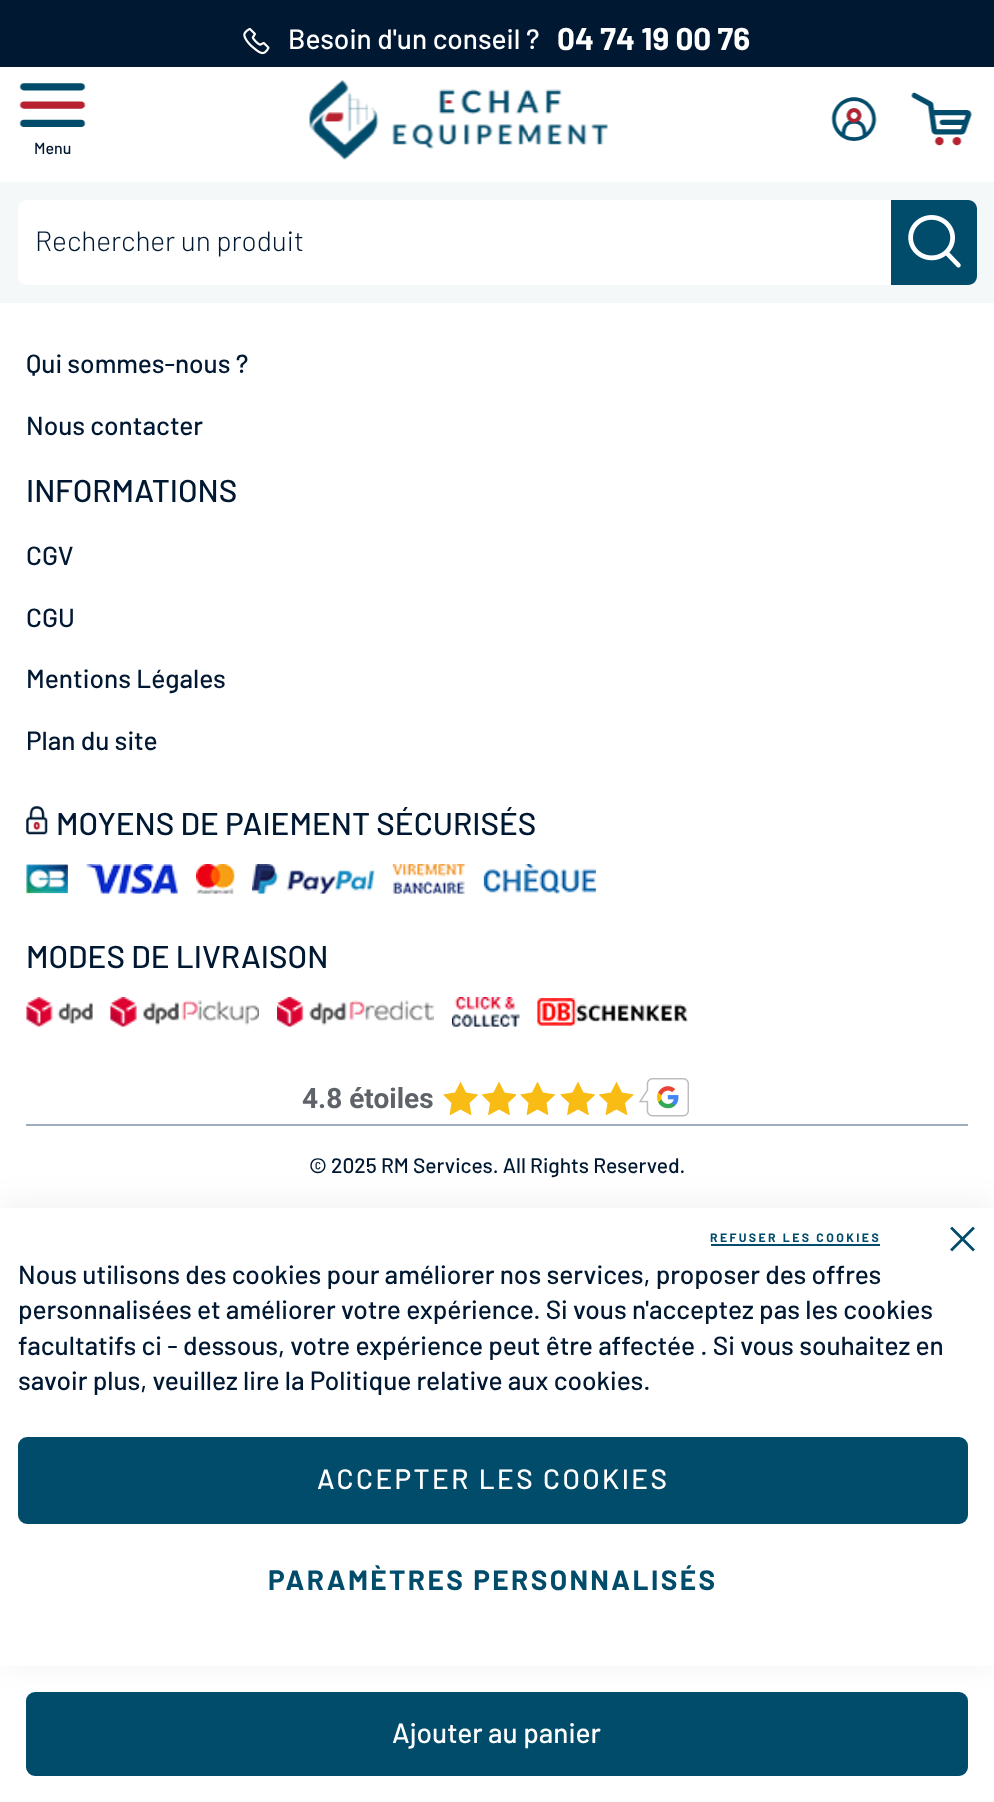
<svg xmlns="http://www.w3.org/2000/svg" width="994" height="1802" viewBox="0 0 994 1802">
  <defs>
    <clipPath id="clip1"><rect x="443" y="1082" width="35" height="33"/></clipPath>
    <clipPath id="clip2"><rect x="481" y="1082" width="35" height="33"/></clipPath>
    <clipPath id="clip3"><rect x="520" y="1082" width="37" height="33"/></clipPath>
    <clipPath id="clip4"><rect x="560" y="1082" width="35" height="33"/></clipPath>
    <clipPath id="clip5"><rect x="599" y="1082" width="36" height="33"/></clipPath>
    <filter id="blur1" x="-50%" y="-200%" width="200%" height="500%"><feGaussianBlur stdDeviation="16"/></filter>
  </defs>
  <rect width="100%" height="100%" fill="#ffffff"/>
  <rect x="0" y="0" width="994" height="67" fill="#001832"/>
  <image x="243" y="27" width="27" height="28" href="img1.png"/>
  <text x="288" y="49" font-family="Barlow" font-size="28" font-weight="500" fill="#ffffff">Besoin d'un conseil ?</text>
  <text x="557" y="50" font-family="Barlow" font-size="31.5" font-weight="bold" fill="#ffffff">04 74 19 00 76</text>
  <image x="309" y="80" width="299" height="80" href="img2.png"/>
  <image x="831" y="97" width="46" height="44" href="img3.png"/>
  <image x="911" y="92" width="61" height="54" href="img4.png"/>
  <image x="19" y="83" width="67" height="44" href="img5.png"/>
  <text x="34" y="154" font-family="Barlow" font-size="16" font-weight="500" fill="#001832">Menu</text>
  <rect x="0" y="182" width="994" height="121" fill="#f5f8f9"/>
  <rect x="18" y="200" width="959" height="85" rx="9" fill="#ffffff"/>
  <text x="35" y="251" font-family="Barlow" font-size="28" font-weight="300" fill="#001832">Rechercher un produit</text>
  <path d="M891 200H968C973 200 977 204 977 209V276C977 281 973 285 968 285H891Z" fill="#014b6b"/>
  <image x="908" y="215" width="53" height="53" href="img6.png"/>
  <text x="26" y="373" font-family="Barlow" font-size="26.25" font-weight="500" fill="#001832">Qui sommes-nous ?</text>
  <text x="26" y="435" font-family="Barlow" font-size="26.25" font-weight="500" fill="#001832">Nous contacter</text>
  <text x="26" y="502" font-family="Barlow" font-size="31.5" font-weight="500" fill="#001832">INFORMATIONS</text>
  <text x="26" y="565" font-family="Barlow" font-size="26.25" font-weight="500" fill="#001832">CGV</text>
  <text x="26" y="627" font-family="Barlow" font-size="26.25" font-weight="500" fill="#001832">CGU</text>
  <text x="26" y="688" font-family="Barlow" font-size="26.25" font-weight="500" fill="#001832">Mentions Légales</text>
  <text x="26" y="750" font-family="Barlow" font-size="26.25" font-weight="500" fill="#001832">Plan du site</text>
  <image x="26" y="806" width="22" height="29" href="img7.png"/>
  <text x="56" y="835" font-family="Barlow" font-size="31.5" font-weight="500" fill="#001832">MOYENS DE PAIEMENT SÉCURISÉS</text>
  <image x="26" y="864" width="42" height="30" href="img8.png"/>
  <image x="86" y="864" width="92" height="30" href="img9.png"/>
  <image x="196" y="864" width="39" height="30" href="img10.png"/>
  <image x="252" y="864" width="123" height="30" href="img11.png"/>
  <image x="392" y="864" width="73" height="30" href="img12.png"/>
  <image x="483" y="864" width="113" height="30" href="img13.png"/>
  <text x="26" y="968" font-family="Barlow" font-size="31.5" font-weight="500" fill="#001832">MODES DE LIVRAISON</text>
  <image x="26" y="997" width="67" height="30" href="img14.png"/>
  <image x="110" y="997" width="149" height="30" href="img15.png"/>
  <image x="277" y="997" width="157" height="30" href="img16.png"/>
  <image x="452" y="997" width="68" height="30" href="img17.png"/>
  <image x="537" y="998" width="151" height="28" href="img18.png"/>
  <text x="302" y="1108" font-family="Roboto" font-size="28" font-weight="bold" fill="#5f6369">4.8 étoiles</text>
  <g clip-path="url(#clip1)">
    <path d="M460.5 1081.5L466 1092.5L478.5 1094.5L469.5 1103L471.5 1115.5L460.5 1109.5L449.5 1115.5L451.5 1103L443 1094.5L455 1092.5Z" fill="#f9bc15"/>
  </g>
  <g clip-path="url(#clip2)">
    <path d="M499 1081.5L504.5 1092.5L517 1094.5L508 1103L510 1115.5L499 1109.5L488 1115.5L490 1103L481.5 1094.5L493.5 1092.5Z" fill="#f9bc15"/>
  </g>
  <g clip-path="url(#clip3)">
    <path d="M537.5 1081.5L543 1092.5L555.5 1094.5L546.5 1103L548.5 1115.5L537.5 1109.5L526.5 1115.5L528.5 1103L520 1094.5L532 1092.5Z" fill="#f9bc15"/>
  </g>
  <g clip-path="url(#clip4)">
    <path d="M578 1081.5L583.5 1092.5L595.5 1094.5L586.5 1103L589 1115.5L578 1109.5L567 1115.5L569 1103L560 1094.5L572.5 1092.5Z" fill="#f9bc15"/>
  </g>
  <g clip-path="url(#clip5)">
    <path d="M616.5 1081.5L622 1092.5L634 1094.5L625 1103L627.5 1115.5L616.5 1109.5L605.5 1115.5L607.5 1103L598.5 1094.5L611 1092.5Z" fill="#f9bc15"/>
  </g>
  <image x="639" y="1078" width="50" height="39" href="img19.png"/>
  <rect x="26" y="1124" width="942" height="2" fill="#9dadbc"/>
  <text x="309" y="1173" font-family="Barlow" font-size="21" font-weight="500" fill="#001832">© 2025 RM Services. All Rights Reserved.</text>
  <rect x="27" y="1693" width="940" height="82" rx="8" fill="#014b6b" stroke="#014b6b" stroke-width="2"/>
  <text x="392" y="1743" font-family="Barlow" font-size="28" font-weight="500" fill="#ffffff">Ajouter au panier</text>
  <rect x="0" y="1204" width="994" height="459" fill="#000000" fill-opacity="0.06" filter="url(#blur1)"/>
  <rect x="0" y="1208" width="994" height="458" fill="#ffffff"/>
  <text x="710" y="1242" font-family="Barlow" font-size="12.25" font-weight="bold" letter-spacing="2.4" fill="#014b6b">REFUSER LES COOKIES</text>
  <rect x="711" y="1244" width="169" height="2" fill="#014b6b"/>
  <rect x="20" y="1439" width="946" height="83" rx="7" fill="#014b6b" stroke="#014b6b" stroke-width="4"/>
  <text x="317" y="1489" font-family="Barlow" font-size="28" font-weight="500" letter-spacing="2.4" fill="#ffffff">ACCEPTER LES COOKIES</text>
  <text x="268" y="1590" font-family="Barlow" font-size="28" font-weight="bold" letter-spacing="2.4" fill="#014b6b">PARAMÈTRES PERSONNALISÉS</text>
  <text x="18" y="1284" font-family="Barlow" font-size="26.25" font-weight="500" fill="#001832">Nous utilisons des cookies pour améliorer nos services, proposer des offres</text>
  <text x="18" y="1319" font-family="Barlow" font-size="26.25" font-weight="500" fill="#001832">personnalisées et améliorer votre expérience. Si vous n'acceptez pas les cookies</text>
  <text x="18" y="1355" font-family="Barlow" font-size="26.25" font-weight="500" fill="#001832">facultatifs ci - dessous, votre expérience peut être affectée . Si vous souhaitez en</text>
  <text x="18" y="1390" font-family="Barlow" font-size="26.25" font-weight="500" fill="#001832">savoir plus, veuillez lire la Politique relative aux cookies.</text>
  <image x="950" y="1226" width="25" height="26" href="img20.png"/>
</svg>
